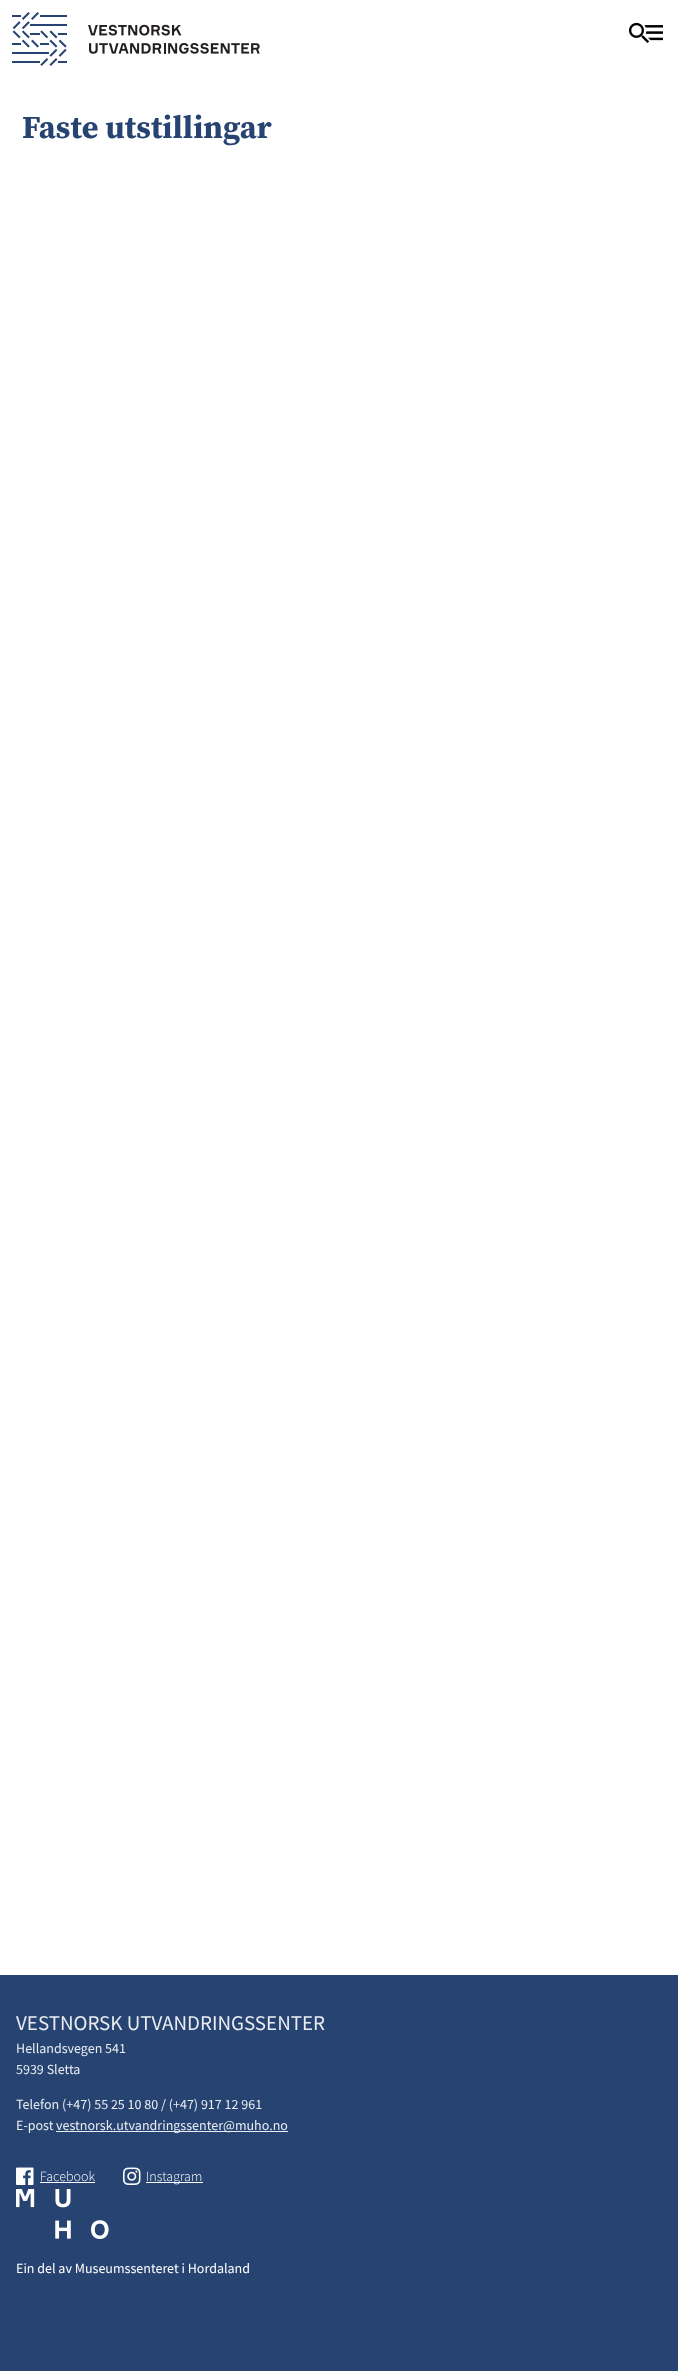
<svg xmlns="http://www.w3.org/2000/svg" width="678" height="2371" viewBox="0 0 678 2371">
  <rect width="100%" height="100%" fill="#ffffff"/>
  <image x="12" y="12" width="248" height="54" href="img1.png"/>
  <image x="629" y="22" width="34" height="21" href="img2.png"/>
  <text x="22" y="138" font-family="Source Serif Pro" font-size="32" font-weight="bold" fill="#264371">Faste utstillingar</text>
  <rect x="0" y="1975" width="678" height="396" fill="#264371"/>
  <text x="16" y="2030" font-family="Source Sans Pro" font-size="21" fill="#e9ecf1">VESTNORSK UTVANDRINGSSENTER</text>
  <text x="16" y="2053" font-family="Source Sans Pro" font-size="14" fill="#e9ecf1">Hellandsvegen 541</text>
  <text x="16" y="2074" font-family="Source Sans Pro" font-size="14" fill="#e9ecf1">5939 Sletta</text>
  <text x="16" y="2109" font-family="Source Sans Pro" font-size="14" fill="#e9ecf1">Telefon (+47) 55 25 10 80 / (+47) 917 12 961</text>
  <text x="16" y="2130" font-family="Source Sans Pro" font-size="14" fill="#e9ecf1">E-post</text>
  <rect x="56" y="2131" width="232" height="1" fill="#e9ecf1"/>
  <text x="56" y="2130" font-family="Source Sans Pro" font-size="14" fill="#e9ecf1">vestnorsk.utvandringssenter@muho.no</text>
  <image x="16" y="2167" width="18" height="18" href="img3.png"/>
  <text x="40" y="2181" font-family="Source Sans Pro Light" font-size="14" font-weight="300" fill="#ffffff">Facebook</text>
  <rect x="40" y="2182" width="55" height="1" fill="#ffffff"/>
  <image x="123" y="2167" width="18" height="18" href="img4.png"/>
  <rect x="146" y="2182" width="57" height="1" fill="#ffffff"/>
  <text x="146" y="2181" font-family="Source Sans Pro Light" font-size="14" font-weight="300" fill="#ffffff">Instagram</text>
  <image x="16" y="2189" width="93" height="50" href="img5.png"/>
  <text x="16" y="2273" font-family="Source Sans Pro" font-size="14" fill="#ffffff">Ein del av Museumssenteret i Hordaland</text>
</svg>
